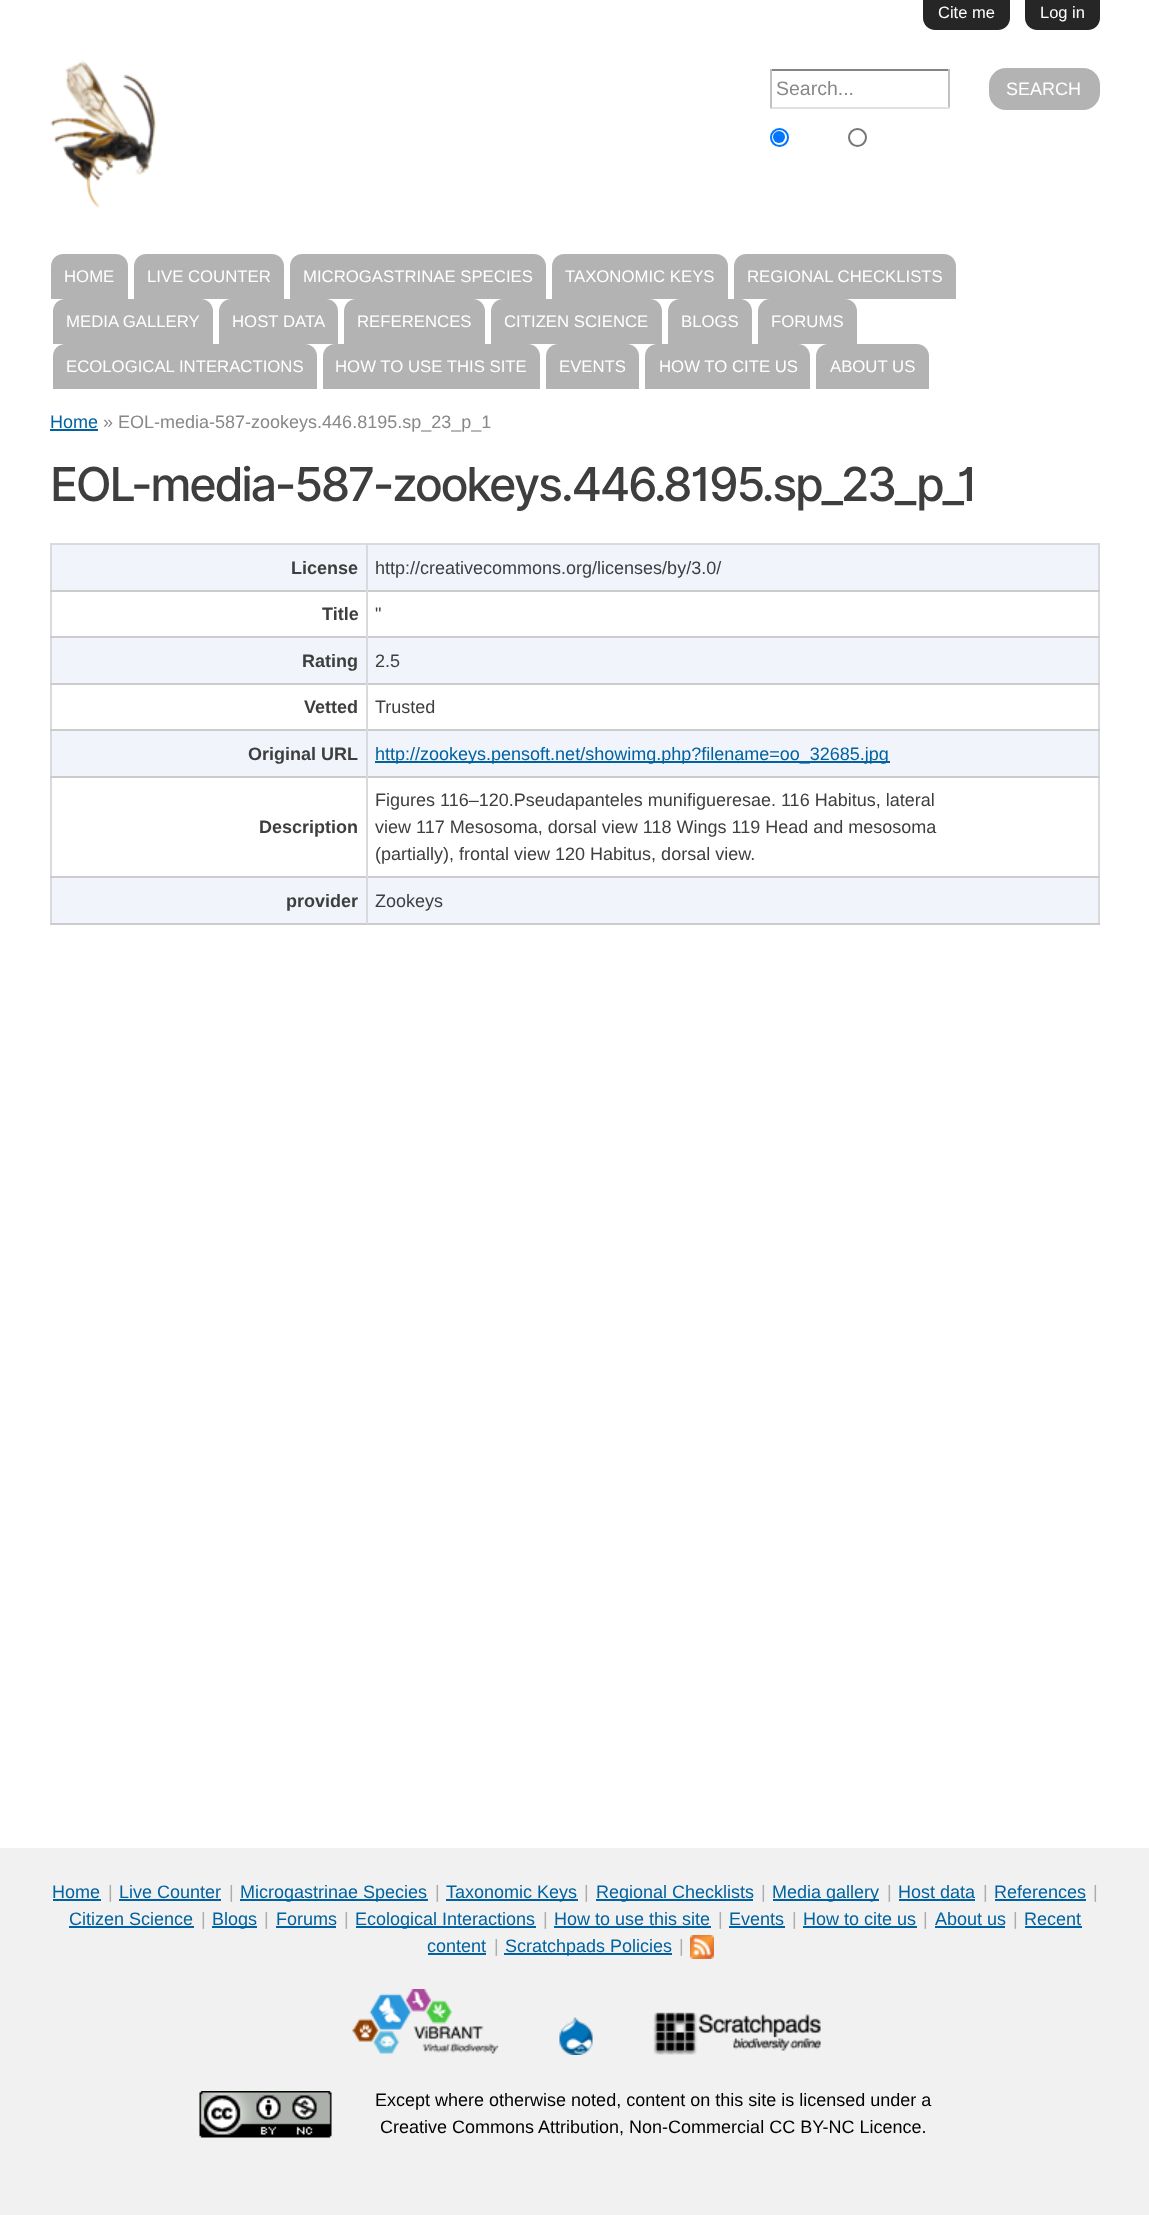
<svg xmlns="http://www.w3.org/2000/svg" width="1149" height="2215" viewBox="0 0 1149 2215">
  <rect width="100%" height="100%" fill="#ffffff"/>
  <path d="M923 0H1010V18C1010 24.5 1004.5 30 998 30H935C928.5 30 923 24.5 923 18Z" fill="#262626"/>
  <text x="938" y="18" font-family="Liberation Sans" font-size="16.5" fill="#ffffff">Cite me</text>
  <path d="M1025 0H1100V18C1100 24.5 1094.5 30 1088 30H1037C1030.5 30 1025 24.5 1025 18Z" fill="#262626"/>
  <text x="1040" y="18" font-family="Liberation Sans" font-size="16.5" fill="#ffffff">Log in</text>
  <image x="50" y="60" width="107" height="148" href="img1.png"/>
  <rect x="770" y="69" width="180" height="2" fill="#848484"/>
  <rect x="948" y="69" width="2" height="39" fill="#c1c1c1"/>
  <rect x="770" y="107" width="180" height="2" fill="#e1e1e1"/>
  <rect x="770" y="69" width="2" height="39" fill="#c1c1c1"/>
  <text x="776" y="95" font-family="Liberation Sans" font-size="19.5" fill="#888888">Search...</text>
  <rect x="989" y="68" width="111" height="42" rx="17" fill="#b3b3b3"/>
  <text x="1006" y="95" font-family="Liberation Sans" font-size="18" fill="#ffffff">SEARCH</text>
  <circle cx="779.5" cy="137.5" r="8.5" fill="none" stroke="#0075ff" stroke-width="2"/>
  <circle cx="779" cy="137" r="6" fill="#0075ff"/>
  <circle cx="857.5" cy="137.5" r="8.5" fill="none" stroke="#767676" stroke-width="2"/>
  <path d="M63 254H116C122.5 254 128 259.5 128 266V299H51V266C51 259.5 56.5 254 63 254Z" fill="#b3b3b3"/>
  <text x="64" y="282" font-family="Liberation Sans" font-size="16.75" fill="#ffffff">HOME</text>
  <path d="M146 254H272C278.5 254 284 259.5 284 266V299H134V266C134 259.5 139.5 254 146 254Z" fill="#b3b3b3"/>
  <text x="147" y="282" font-family="Liberation Sans" font-size="16.75" fill="#ffffff">LIVE COUNTER</text>
  <path d="M302 254H534C540.5 254 546 259.5 546 266V299H290V266C290 259.5 295.5 254 302 254Z" fill="#b3b3b3"/>
  <text x="303" y="282" font-family="Liberation Sans" font-size="16.75" fill="#ffffff">MICROGASTRINAE SPECIES</text>
  <path d="M564 254H716C722.5 254 728 259.5 728 266V299H552V266C552 259.5 557.5 254 564 254Z" fill="#b3b3b3"/>
  <text x="565" y="282" font-family="Liberation Sans" font-size="16.75" fill="#ffffff">TAXONOMIC KEYS</text>
  <path d="M746 254H944C950.5 254 956 259.5 956 266V299H734V266C734 259.5 739.5 254 746 254Z" fill="#b3b3b3"/>
  <text x="747" y="282" font-family="Liberation Sans" font-size="16.75" fill="#ffffff">REGIONAL CHECKLISTS</text>
  <path d="M65 299H201C207.5 299 213 304.5 213 311V344H53V311C53 304.5 58.5 299 65 299Z" fill="#b3b3b3"/>
  <text x="66" y="327" font-family="Liberation Sans" font-size="16.75" fill="#ffffff">MEDIA GALLERY</text>
  <path d="M231 299H326C332.5 299 338 304.5 338 311V344H219V311C219 304.5 224.5 299 231 299Z" fill="#b3b3b3"/>
  <text x="232" y="327" font-family="Liberation Sans" font-size="16.75" fill="#ffffff">HOST DATA</text>
  <path d="M356 299H473C479.5 299 485 304.5 485 311V344H344V311C344 304.5 349.5 299 356 299Z" fill="#b3b3b3"/>
  <text x="357" y="327" font-family="Liberation Sans" font-size="16.75" fill="#ffffff">REFERENCES</text>
  <path d="M503 299H650C656.5 299 662 304.5 662 311V344H491V311C491 304.5 496.5 299 503 299Z" fill="#b3b3b3"/>
  <text x="504" y="327" font-family="Liberation Sans" font-size="16.75" fill="#ffffff">CITIZEN SCIENCE</text>
  <path d="M680 299H740C746.5 299 752 304.5 752 311V344H668V311C668 304.5 673.5 299 680 299Z" fill="#b3b3b3"/>
  <text x="681" y="327" font-family="Liberation Sans" font-size="16.75" fill="#ffffff">BLOGS</text>
  <path d="M770 299H845C851.5 299 857 304.5 857 311V344H758V311C758 304.5 763.5 299 770 299Z" fill="#b3b3b3"/>
  <text x="771" y="327" font-family="Liberation Sans" font-size="16.75" fill="#ffffff">FORUMS</text>
  <path d="M65 344H305C311.5 344 317 349.5 317 356V389H53V356C53 349.5 58.5 344 65 344Z" fill="#b3b3b3"/>
  <text x="66" y="372" font-family="Liberation Sans" font-size="16.75" fill="#ffffff">ECOLOGICAL INTERACTIONS</text>
  <path d="M335 344H528C534.5 344 540 349.5 540 356V389H323V356C323 349.5 328.5 344 335 344Z" fill="#b3b3b3"/>
  <text x="335" y="372" font-family="Liberation Sans" font-size="16.75" fill="#ffffff">HOW TO USE THIS SITE</text>
  <path d="M558 344H627C633.5 344 639 349.5 639 356V389H546V356C546 349.5 551.5 344 558 344Z" fill="#b3b3b3"/>
  <text x="559" y="372" font-family="Liberation Sans" font-size="16.75" fill="#ffffff">EVENTS</text>
  <path d="M657 344H798C804.5 344 810 349.5 810 356V389H645V356C645 349.5 650.5 344 657 344Z" fill="#b3b3b3"/>
  <text x="659" y="372" font-family="Liberation Sans" font-size="16.75" fill="#ffffff">HOW TO CITE US</text>
  <path d="M828 344H917C923.5 344 929 349.5 929 356V389H816V356C816 349.5 821.5 344 828 344Z" fill="#b3b3b3"/>
  <text x="830" y="372" font-family="Liberation Sans" font-size="16.75" fill="#ffffff">ABOUT US</text>
  <text x="50" y="428" font-family="Liberation Sans" font-size="18" fill="#0062a0">Home</text>
  <rect x="50" y="429" width="48" height="2" fill="#0062a0"/>
  <text x="103" y="428" font-family="Liberation Sans" font-size="18" fill="#888888">» EOL-media-587-zookeys.446.8195.sp_23_p_1</text>
  <text x="50" y="501" font-family="Inter" font-size="46.75" font-weight="500" letter-spacing="-2.35" fill="#3e3e3e">EOL-media-587-zookeys.446.8195.sp_23_p_1</text>
  <rect x="50" y="543" width="1050" height="2" fill="#d9dadd"/>
  <rect x="1098" y="543" width="2" height="381" fill="#d9dadd"/>
  <rect x="50" y="543" width="2" height="381" fill="#d9dadd"/>
  <rect x="52" y="545" width="1046" height="45" fill="#f1f4fb"/>
  <rect x="50" y="590" width="1050" height="2" fill="#cccccc"/>
  <text x="291" y="574" font-family="Liberation Sans" font-size="18" font-weight="bold" fill="#3e3e3e">License</text>
  <text x="375" y="574" font-family="Liberation Sans" font-size="18" fill="#3e3e3e">http://creativecommons.org/licenses/by/3.0/</text>
  <rect x="50" y="636" width="1050" height="2" fill="#cccccc"/>
  <text x="322" y="620" font-family="Liberation Sans" font-size="18" font-weight="bold" fill="#3e3e3e">Title</text>
  <text x="375" y="620" font-family="Liberation Sans" font-size="18" fill="#3e3e3e">"</text>
  <rect x="52" y="638" width="1046" height="45" fill="#f1f4fb"/>
  <rect x="50" y="683" width="1050" height="2" fill="#cccccc"/>
  <text x="302" y="667" font-family="Liberation Sans" font-size="18" font-weight="bold" fill="#3e3e3e">Rating</text>
  <text x="375" y="667" font-family="Liberation Sans" font-size="18" fill="#3e3e3e">2.5</text>
  <rect x="50" y="729" width="1050" height="2" fill="#cccccc"/>
  <text x="304" y="713" font-family="Liberation Sans" font-size="18" font-weight="bold" fill="#3e3e3e">Vetted</text>
  <text x="375" y="713" font-family="Liberation Sans" font-size="18" fill="#3e3e3e">Trusted</text>
  <rect x="52" y="731" width="1046" height="45" fill="#f1f4fb"/>
  <rect x="50" y="776" width="1050" height="2" fill="#cccccc"/>
  <text x="248" y="760" font-family="Liberation Sans" font-size="18" font-weight="bold" fill="#3e3e3e">Original URL</text>
  <rect x="375" y="761" width="515" height="2" fill="#0062a0"/>
  <text x="375" y="760" font-family="Liberation Sans" font-size="18" fill="#0062a0">http://zookeys.pensoft.net/showimg.php?filename=oo_32685.jpg</text>
  <rect x="50" y="876" width="1050" height="2" fill="#cccccc"/>
  <text x="259" y="833" font-family="Liberation Sans" font-size="18" font-weight="bold" fill="#3e3e3e">Description</text>
  <text x="375" y="806" font-family="Liberation Sans" font-size="18" fill="#3e3e3e">Figures 116–120.Pseudapanteles munifigueresae. 116 Habitus, lateral</text>
  <text x="375" y="833" font-family="Liberation Sans" font-size="18" fill="#3e3e3e">view 117 Mesosoma, dorsal view 118 Wings 119 Head and mesosoma</text>
  <text x="375" y="860" font-family="Liberation Sans" font-size="18" fill="#3e3e3e">(partially), frontal view 120 Habitus, dorsal view.</text>
  <rect x="52" y="878" width="1046" height="45" fill="#f1f4fb"/>
  <rect x="50" y="923" width="1050" height="2" fill="#cccccc"/>
  <rect x="366" y="543" width="2" height="381" fill="#d9dadd"/>
  <text x="286" y="907" font-family="Liberation Sans" font-size="18" font-weight="bold" fill="#3e3e3e">provider</text>
  <text x="375" y="907" font-family="Liberation Sans" font-size="18" fill="#3e3e3e">Zookeys</text>
  <rect x="0" y="1848" width="1149" height="367" fill="#f1f1f1"/>
  <text x="52" y="1898" font-family="Liberation Sans" font-size="18" fill="#0062a0">Home</text>
  <rect x="53" y="1899" width="48" height="2" fill="#0062a0"/>
  <text x="108" y="1898" font-family="Liberation Sans" font-size="18" fill="#acacac">|</text>
  <text x="119" y="1898" font-family="Liberation Sans" font-size="18" fill="#0062a0">Live Counter</text>
  <rect x="119" y="1899" width="102" height="2" fill="#0062a0"/>
  <text x="229" y="1898" font-family="Liberation Sans" font-size="18" fill="#acacac">|</text>
  <rect x="240" y="1899" width="188" height="2" fill="#0062a0"/>
  <text x="240" y="1898" font-family="Liberation Sans" font-size="18" fill="#0062a0">Microgastrinae Species</text>
  <text x="435" y="1898" font-family="Liberation Sans" font-size="18" fill="#acacac">|</text>
  <rect x="446" y="1899" width="132" height="2" fill="#0062a0"/>
  <text x="446" y="1898" font-family="Liberation Sans" font-size="18" fill="#0062a0">Taxonomic Keys</text>
  <text x="584" y="1898" font-family="Liberation Sans" font-size="18" fill="#acacac">|</text>
  <rect x="596" y="1899" width="157" height="2" fill="#0062a0"/>
  <text x="596" y="1898" font-family="Liberation Sans" font-size="18" fill="#0062a0">Regional Checklists</text>
  <text x="761" y="1898" font-family="Liberation Sans" font-size="18" fill="#acacac">|</text>
  <rect x="773" y="1899" width="106" height="2" fill="#0062a0"/>
  <text x="772" y="1898" font-family="Liberation Sans" font-size="18" fill="#0062a0">Media gallery</text>
  <text x="887" y="1898" font-family="Liberation Sans" font-size="18" fill="#acacac">|</text>
  <text x="898" y="1898" font-family="Liberation Sans" font-size="18" fill="#0062a0">Host data</text>
  <rect x="899" y="1899" width="76" height="2" fill="#0062a0"/>
  <text x="983" y="1898" font-family="Liberation Sans" font-size="18" fill="#acacac">|</text>
  <text x="994" y="1898" font-family="Liberation Sans" font-size="18" fill="#0062a0">References</text>
  <rect x="995" y="1899" width="91" height="2" fill="#0062a0"/>
  <text x="1093" y="1898" font-family="Liberation Sans" font-size="18" fill="#acacac">|</text>
  <text x="69" y="1925" font-family="Liberation Sans" font-size="18" fill="#0062a0">Citizen Science</text>
  <rect x="69" y="1926" width="125" height="2" fill="#0062a0"/>
  <text x="201" y="1925" font-family="Liberation Sans" font-size="18" fill="#acacac">|</text>
  <rect x="212" y="1926" width="45" height="2" fill="#0062a0"/>
  <text x="212" y="1925" font-family="Liberation Sans" font-size="18" fill="#0062a0">Blogs</text>
  <text x="264" y="1925" font-family="Liberation Sans" font-size="18" fill="#acacac">|</text>
  <text x="276" y="1925" font-family="Liberation Sans" font-size="18" fill="#0062a0">Forums</text>
  <rect x="276" y="1926" width="60" height="2" fill="#0062a0"/>
  <text x="344" y="1925" font-family="Liberation Sans" font-size="18" fill="#acacac">|</text>
  <rect x="356" y="1926" width="180" height="2" fill="#0062a0"/>
  <text x="355" y="1925" font-family="Liberation Sans" font-size="18" fill="#0062a0">Ecological Interactions</text>
  <text x="543" y="1925" font-family="Liberation Sans" font-size="18" fill="#acacac">|</text>
  <text x="554" y="1925" font-family="Liberation Sans" font-size="18" fill="#0062a0">How to use this site</text>
  <rect x="554" y="1926" width="157" height="2" fill="#0062a0"/>
  <text x="718" y="1925" font-family="Liberation Sans" font-size="18" fill="#acacac">|</text>
  <text x="729" y="1925" font-family="Liberation Sans" font-size="18" fill="#0062a0">Events</text>
  <rect x="729" y="1926" width="56" height="2" fill="#0062a0"/>
  <text x="792" y="1925" font-family="Liberation Sans" font-size="18" fill="#acacac">|</text>
  <text x="803" y="1925" font-family="Liberation Sans" font-size="18" fill="#0062a0">How to cite us</text>
  <rect x="803" y="1926" width="114" height="2" fill="#0062a0"/>
  <text x="923" y="1925" font-family="Liberation Sans" font-size="18" fill="#acacac">|</text>
  <text x="935" y="1925" font-family="Liberation Sans" font-size="18" fill="#0062a0">About us</text>
  <rect x="935" y="1926" width="70" height="2" fill="#0062a0"/>
  <text x="1013" y="1925" font-family="Liberation Sans" font-size="18" fill="#acacac">|</text>
  <text x="1024" y="1925" font-family="Liberation Sans" font-size="18" fill="#0062a0">Recent</text>
  <rect x="1025" y="1926" width="57" height="2" fill="#0062a0"/>
  <text x="427" y="1952" font-family="Liberation Sans" font-size="18" fill="#0062a0">content</text>
  <rect x="428" y="1953" width="58" height="2" fill="#0062a0"/>
  <text x="494" y="1952" font-family="Liberation Sans" font-size="18" fill="#acacac">|</text>
  <rect x="504" y="1953" width="168" height="2" fill="#0062a0"/>
  <text x="505" y="1952" font-family="Liberation Sans" font-size="18" fill="#0062a0">Scratchpads Policies</text>
  <text x="679" y="1952" font-family="Liberation Sans" font-size="18" fill="#acacac">|</text>
  <image x="690" y="1935" width="24" height="24" href="img2.png"/>
  <image x="352" y="1989" width="147" height="65" href="img3.png"/>
  <image x="559" y="2017" width="34" height="38" href="img4.png"/>
  <image x="653" y="2012" width="168" height="43" href="img5.png"/>
  <image x="199" y="2091" width="133" height="47" href="img6.png"/>
  <text x="375" y="2106" font-family="Liberation Sans" font-size="18" fill="#000000">Except where otherwise noted, content on this site is licensed under a</text>
  <text x="380" y="2133" font-family="Liberation Sans" font-size="18" fill="#000000">Creative Commons Attribution, Non-Commercial CC BY-NC Licence.</text>
</svg>
